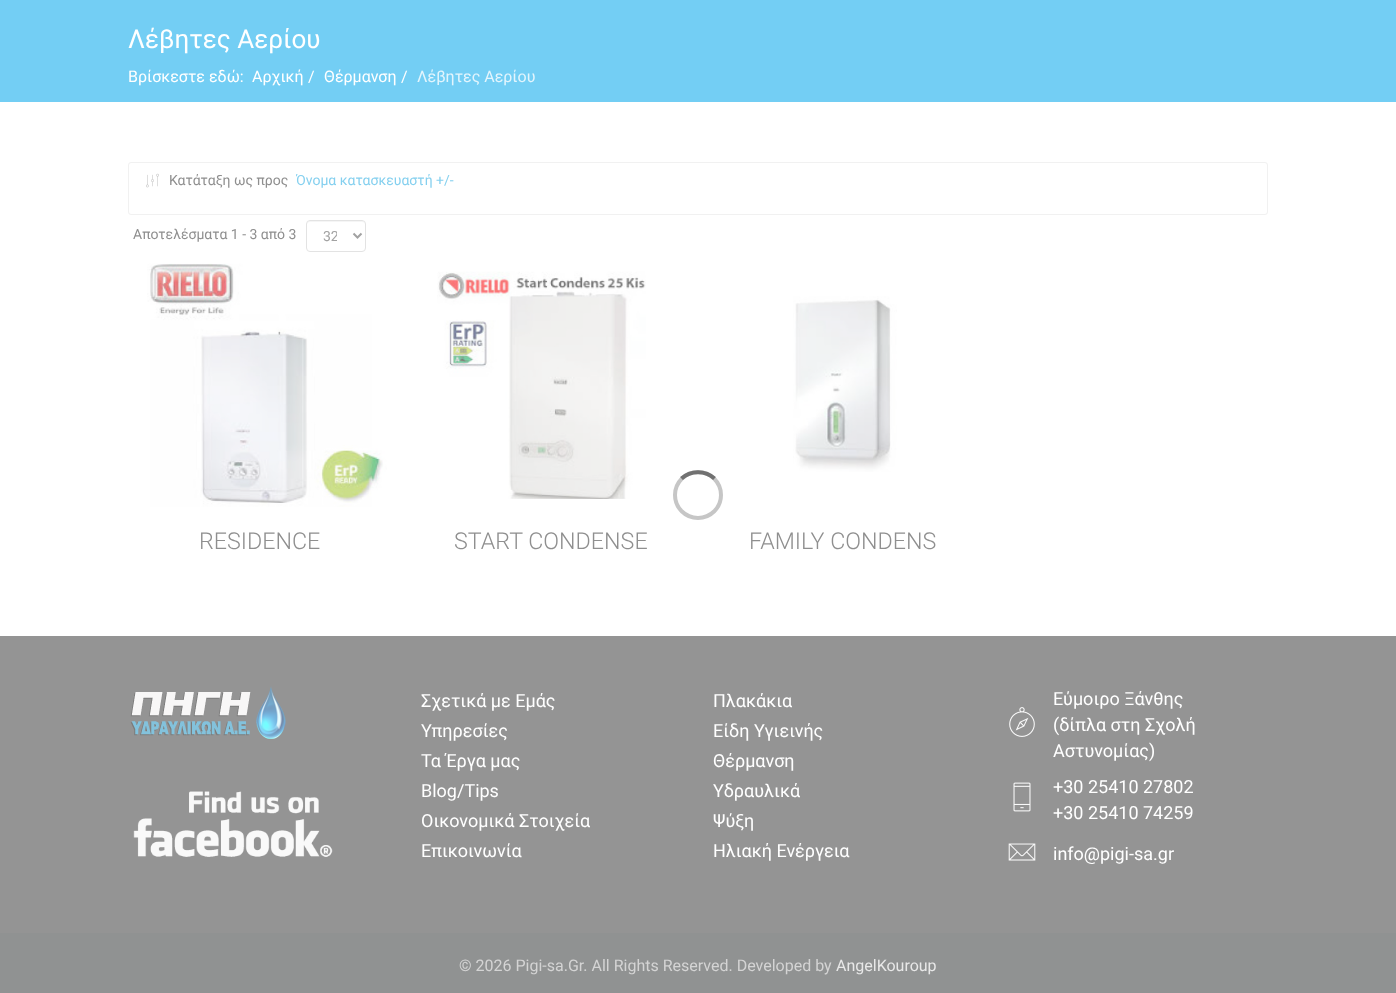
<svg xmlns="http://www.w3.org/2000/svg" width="1396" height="993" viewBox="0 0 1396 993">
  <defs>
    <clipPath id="clip1"><rect x="323" y="227" width="14" height="18"/></clipPath>
  </defs>
  <rect width="100%" height="100%" fill="#ffffff"/>
  <rect x="0" y="0" width="1396" height="102" fill="#73cef4"/>
  <text x="128" y="48" font-family="Roboto" font-size="26" fill="#ffffff">Λέβητες Αερίου</text>
  <text x="128" y="82" font-family="Roboto" font-size="16" fill="#ffffff">Βρίσκεστε εδώ:</text>
  <text x="252" y="82" font-family="Roboto" font-size="16" fill="#ffffff">Αρχική</text>
  <text x="308" y="82" font-family="Roboto" font-size="16" fill="#ffffff">/</text>
  <text x="324" y="82" font-family="Roboto" font-size="16" fill="#ffffff">Θέρμανση</text>
  <text x="401" y="82" font-family="Roboto" font-size="16" fill="#ffffff">/</text>
  <text x="417" y="82" font-family="Roboto" font-size="16" fill="#e3f5fd">Λέβητες Αερίου</text>
  <rect x="128.5" y="162.5" width="1139" height="52" rx="2.5" fill="none" stroke="#f1f1f1"/>
  <image x="146" y="173" width="13" height="15" href="img1.png"/>
  <text x="169" y="185" font-family="Roboto" font-size="14" fill="#8f8f8f">Κατάταξη ως προς</text>
  <text x="296" y="185" font-family="Roboto" font-size="14" fill="#85d0ef">Όνομα κατασκευαστή +/-</text>
  <text x="133" y="239" font-family="Roboto" font-size="14" fill="#8f8f8f">Αποτελέσματα 1 - 3 από 3</text>
  <path d="M310 222H362C364 222 365 223 365 225C365 219 358 221 353 221H319C314 221 307 219 307 225C307 223 308 222 310 222Z" fill="#f5f5f5"/>
  <rect x="306.5" y="220.5" width="59" height="31" rx="3.5" fill="none" stroke="#e3e3e3"/>
  <path d="M353.5 233.5L357.5 237.5L361.5 233.5" fill="none" stroke="#a2a2a2" stroke-width="2"/>
  <g clip-path="url(#clip1)">
    <text x="323" y="241" font-family="Roboto" font-size="14" fill="#a2a2a2">32</text>
  </g>
  <image x="147" y="263" width="240" height="244" href="img2.png"/>
  <text x="199" y="549" font-family="Roboto" font-size="23.25" font-weight="300" fill="#8f8f8f">RESIDENCE</text>
  <image x="437" y="271" width="209" height="228" href="img3.png"/>
  <text x="454" y="549" font-family="Roboto" font-size="23.25" font-weight="300" fill="#8f8f8f">START CONDENSE</text>
  <image x="793" y="296" width="104" height="176" href="img4.png"/>
  <text x="749" y="549" font-family="Roboto" font-size="23.25" font-weight="300" fill="#8f8f8f">FAMILY CONDENS</text>
  <circle cx="698" cy="495" r="23" fill="none" stroke="#c6c6c6" stroke-width="4"/>
  <path d="M681.5 478.5C690.5 470 705.5 470 714.5 478.5" fill="none" stroke="#717171" stroke-width="4"/>
  <rect x="0" y="636" width="1396" height="297" fill="#949494"/>
  <image x="130" y="686" width="156" height="53" href="img5.png"/>
  <image x="133" y="791" width="200" height="66" href="img6.png"/>
  <text x="421" y="707" font-family="Roboto" font-size="18" fill="#ffffff">Σχετικά με Εμάς</text>
  <text x="421" y="737" font-family="Roboto" font-size="18" fill="#ffffff">Υπηρεσίες</text>
  <text x="421" y="767" font-family="Roboto" font-size="18" fill="#ffffff">Τα Έργα μας</text>
  <text x="421" y="797" font-family="Roboto" font-size="18" fill="#ffffff">Blog/Tips</text>
  <text x="421" y="827" font-family="Roboto" font-size="18" fill="#ffffff">Οικονομικά Στοιχεία</text>
  <text x="421" y="857" font-family="Roboto" font-size="18" fill="#ffffff">Επικοινωνία</text>
  <text x="713" y="707" font-family="Roboto" font-size="18" fill="#ffffff">Πλακάκια</text>
  <text x="713" y="737" font-family="Roboto" font-size="18" fill="#ffffff">Είδη Υγιεινής</text>
  <text x="713" y="767" font-family="Roboto" font-size="18" fill="#ffffff">Θέρμανση</text>
  <text x="713" y="797" font-family="Roboto" font-size="18" fill="#ffffff">Υδραυλικά</text>
  <text x="713" y="827" font-family="Roboto" font-size="18" fill="#ffffff">Ψύξη</text>
  <text x="713" y="857" font-family="Roboto" font-size="18" fill="#ffffff">Ηλιακή Ενέργεια</text>
  <image x="1009" y="707" width="26" height="30" href="img7.png"/>
  <text x="1053" y="705" font-family="Roboto" font-size="18" fill="#ffffff">Εύμοιρο Ξάνθης</text>
  <text x="1053" y="731" font-family="Roboto" font-size="18" fill="#ffffff">(δίπλα στη Σχολή</text>
  <text x="1053" y="757" font-family="Roboto" font-size="18" fill="#ffffff">Αστυνομίας)</text>
  <image x="1013" y="782" width="18" height="30" href="img8.png"/>
  <text x="1053" y="793" font-family="Roboto" font-size="18" fill="#ffffff">+30 25410 27802</text>
  <text x="1053" y="819" font-family="Roboto" font-size="18" fill="#ffffff">+30 25410 74259</text>
  <image x="1008" y="843" width="28" height="18" href="img9.png"/>
  <text x="1053" y="860" font-family="Roboto" font-size="18" fill="#ffffff">info@pigi-sa.gr</text>
  <rect x="0" y="933" width="1396" height="60" fill="#909292"/>
  <text x="459" y="971" font-family="Roboto" font-size="16" fill="#d4d4d4">© 2026 Pigi-sa.Gr. All Rights Reserved. Developed by</text>
  <text x="836" y="971" font-family="Roboto" font-size="16" fill="#e8e8e8">AngelKouroup</text>
</svg>
